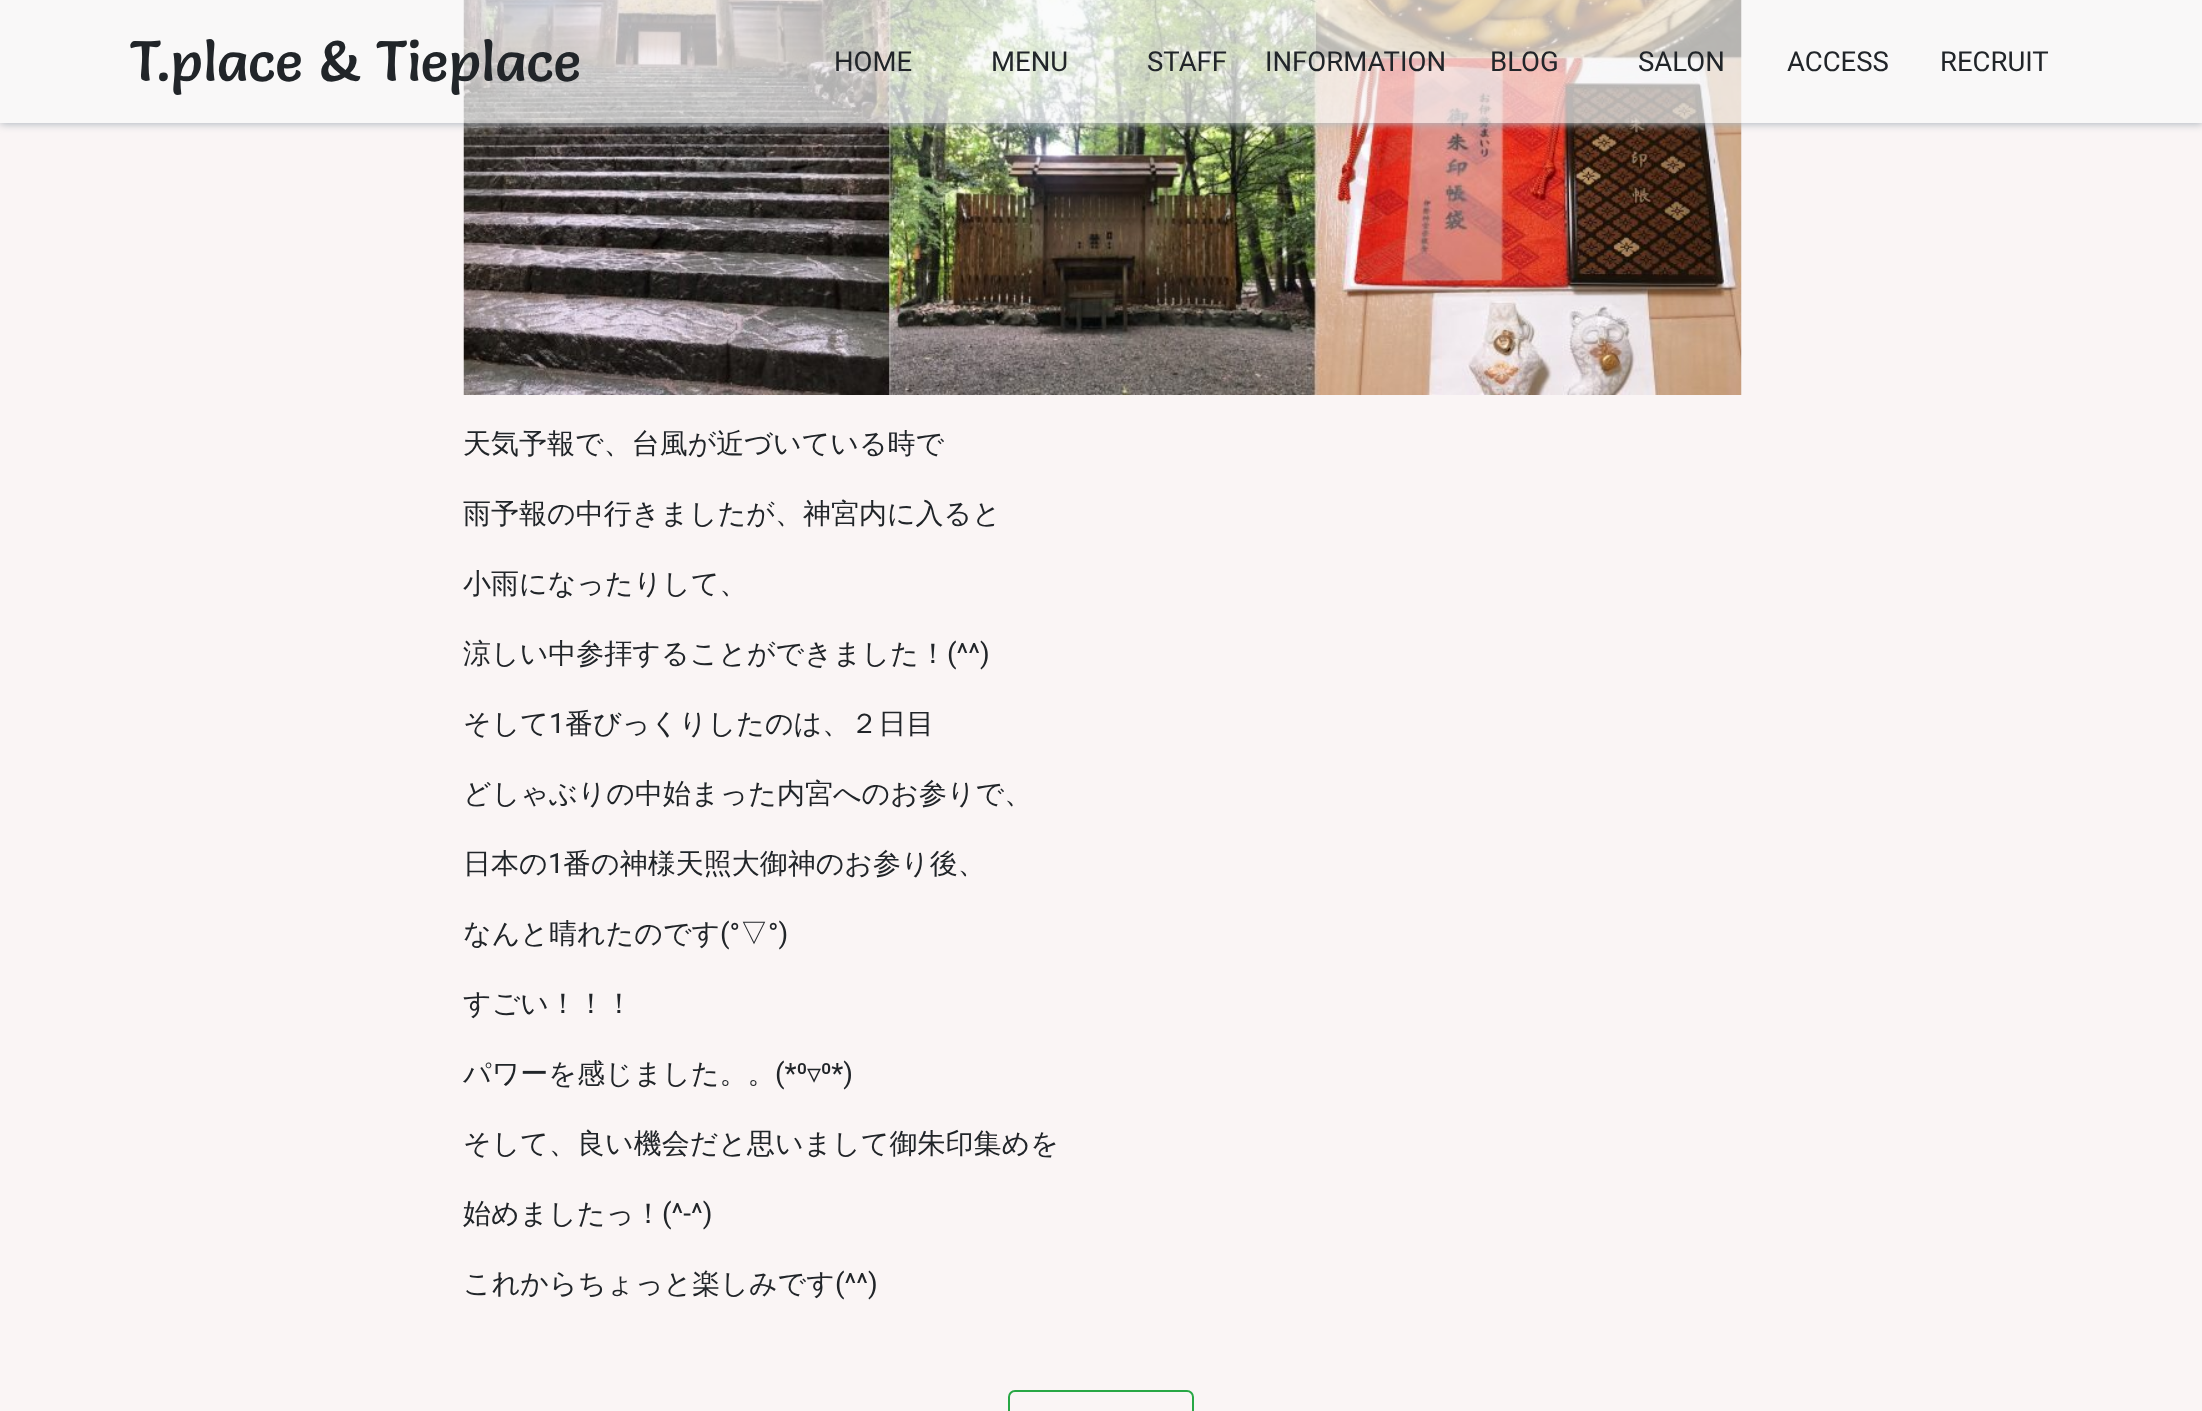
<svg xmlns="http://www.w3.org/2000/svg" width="2202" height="1411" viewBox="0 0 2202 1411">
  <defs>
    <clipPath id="clip1"><path d="M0 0H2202V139H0ZM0 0H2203V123H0Z" clip-rule="evenodd"/></clipPath>
    <filter id="blur1" x="-50%" y="-200%" width="200%" height="500%"><feGaussianBlur stdDeviation="4.5"/></filter>
  </defs>
  <rect width="100%" height="100%" fill="#faf5f5"/>
  <image x="463" y="0" width="1279" height="395" href="img1.png"/>
  <g clip-path="url(#clip1)">
    <rect x="0" y="2" width="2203" height="122" fill="#adb5bd" filter="url(#blur1)"/>
  </g>
  <rect x="0" y="0" width="2202" height="123" fill="#f8f9fa" fill-opacity="0.7"/>
  <text x="130" y="81" font-family="Salsa" font-size="56" fill="#212529">T.place &amp; Tieplace</text>
  <text x="834" y="71" font-family="Roboto" font-size="27.5" fill="#212529">HOME</text>
  <text x="991" y="71" font-family="Roboto" font-size="27.5" fill="#212529">MENU</text>
  <text x="1147" y="71" font-family="Roboto" font-size="27.5" fill="#212529">STAFF</text>
  <text x="1265" y="71" font-family="Roboto" font-size="27.5" fill="#212529">INFORMATION</text>
  <text x="1490" y="71" font-family="Roboto" font-size="27.5" fill="#212529">BLOG</text>
  <text x="1638" y="71" font-family="Roboto" font-size="27.5" fill="#212529">SALON</text>
  <text x="1787" y="71" font-family="Roboto" font-size="27.5" fill="#212529">ACCESS</text>
  <text x="1940" y="71" font-family="Roboto" font-size="27.5" fill="#212529">RECRUIT</text>
  <text x="463" y="453" font-family="WenQuanYi Zen Hei" font-size="28" font-weight="500" fill="#212529">天気予報で、台風が近づいている時で</text>
  <text x="463" y="523" font-family="WenQuanYi Zen Hei" font-size="28" font-weight="500" fill="#212529">雨予報の中行きましたが、神宮内に入ると</text>
  <text x="463" y="593" font-family="WenQuanYi Zen Hei" font-size="28" font-weight="500" fill="#212529">小雨になったりして、</text>
  <text x="463" y="663" font-family="WenQuanYi Zen Hei" font-size="28" font-weight="500" fill="#212529">涼しい中参拝することができました！</text>
  <text x="947" y="663" font-family="Roboto" font-size="28" fill="#212529">(^^)</text>
  <text x="463" y="733" font-family="WenQuanYi Zen Hei" font-size="28" font-weight="500" fill="#212529">そして</text>
  <text x="549" y="733" font-family="Roboto" font-size="28" fill="#212529">1</text>
  <text x="565" y="733" font-family="WenQuanYi Zen Hei" font-size="28" font-weight="500" fill="#212529">番びっくりしたのは、２日目</text>
  <text x="463" y="803" font-family="WenQuanYi Zen Hei" font-size="28" font-weight="500" fill="#212529">どしゃぶりの中始まった内宮へのお参りで、</text>
  <text x="463" y="873" font-family="WenQuanYi Zen Hei" font-size="28" font-weight="500" fill="#212529">日本の</text>
  <text x="548" y="873" font-family="Roboto" font-size="28" fill="#212529">1</text>
  <text x="563" y="873" font-family="WenQuanYi Zen Hei" font-size="28" font-weight="500" fill="#212529">番の神様天照大御神のお参り後、</text>
  <text x="463" y="943" font-family="WenQuanYi Zen Hei" font-size="28" font-weight="500" fill="#212529">なんと晴れたのです</text>
  <text x="720" y="943" font-family="Roboto" font-size="28" fill="#212529">(°</text>
  <text x="740" y="943" font-family="WenQuanYi Zen Hei" font-size="28" font-weight="500" fill="#212529">▽</text>
  <text x="768" y="943" font-family="Roboto" font-size="28" fill="#212529">°)</text>
  <text x="463" y="1013" font-family="WenQuanYi Zen Hei" font-size="28" font-weight="500" fill="#212529">すごい！！！</text>
  <text x="463" y="1083" font-family="WenQuanYi Zen Hei" font-size="28" font-weight="500" fill="#212529">パワーを感じました。。</text>
  <text x="775" y="1083" font-family="Roboto" font-size="28" fill="#212529">(*⁰</text>
  <text x="807" y="1083" font-family="DejaVu Sans" font-size="28" fill="#212529">▿</text>
  <text x="821" y="1083" font-family="Roboto" font-size="28" fill="#212529">⁰*)</text>
  <text x="463" y="1153" font-family="WenQuanYi Zen Hei" font-size="28" font-weight="500" fill="#212529">そして、良い機会だと思いまして御朱印集めを</text>
  <text x="463" y="1223" font-family="WenQuanYi Zen Hei" font-size="28" font-weight="500" fill="#212529">始めましたっ！</text>
  <text x="662" y="1223" font-family="Roboto" font-size="28" fill="#212529">(^-^)</text>
  <text x="463" y="1293" font-family="WenQuanYi Zen Hei" font-size="28" font-weight="500" fill="#212529">これからちょっと楽しみです</text>
  <text x="835" y="1293" font-family="Roboto" font-size="28" fill="#212529">(^^)</text>
  <rect x="1009" y="1391" width="184" height="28" rx="6" fill="none" stroke="#28a745" stroke-width="2"/>
</svg>
